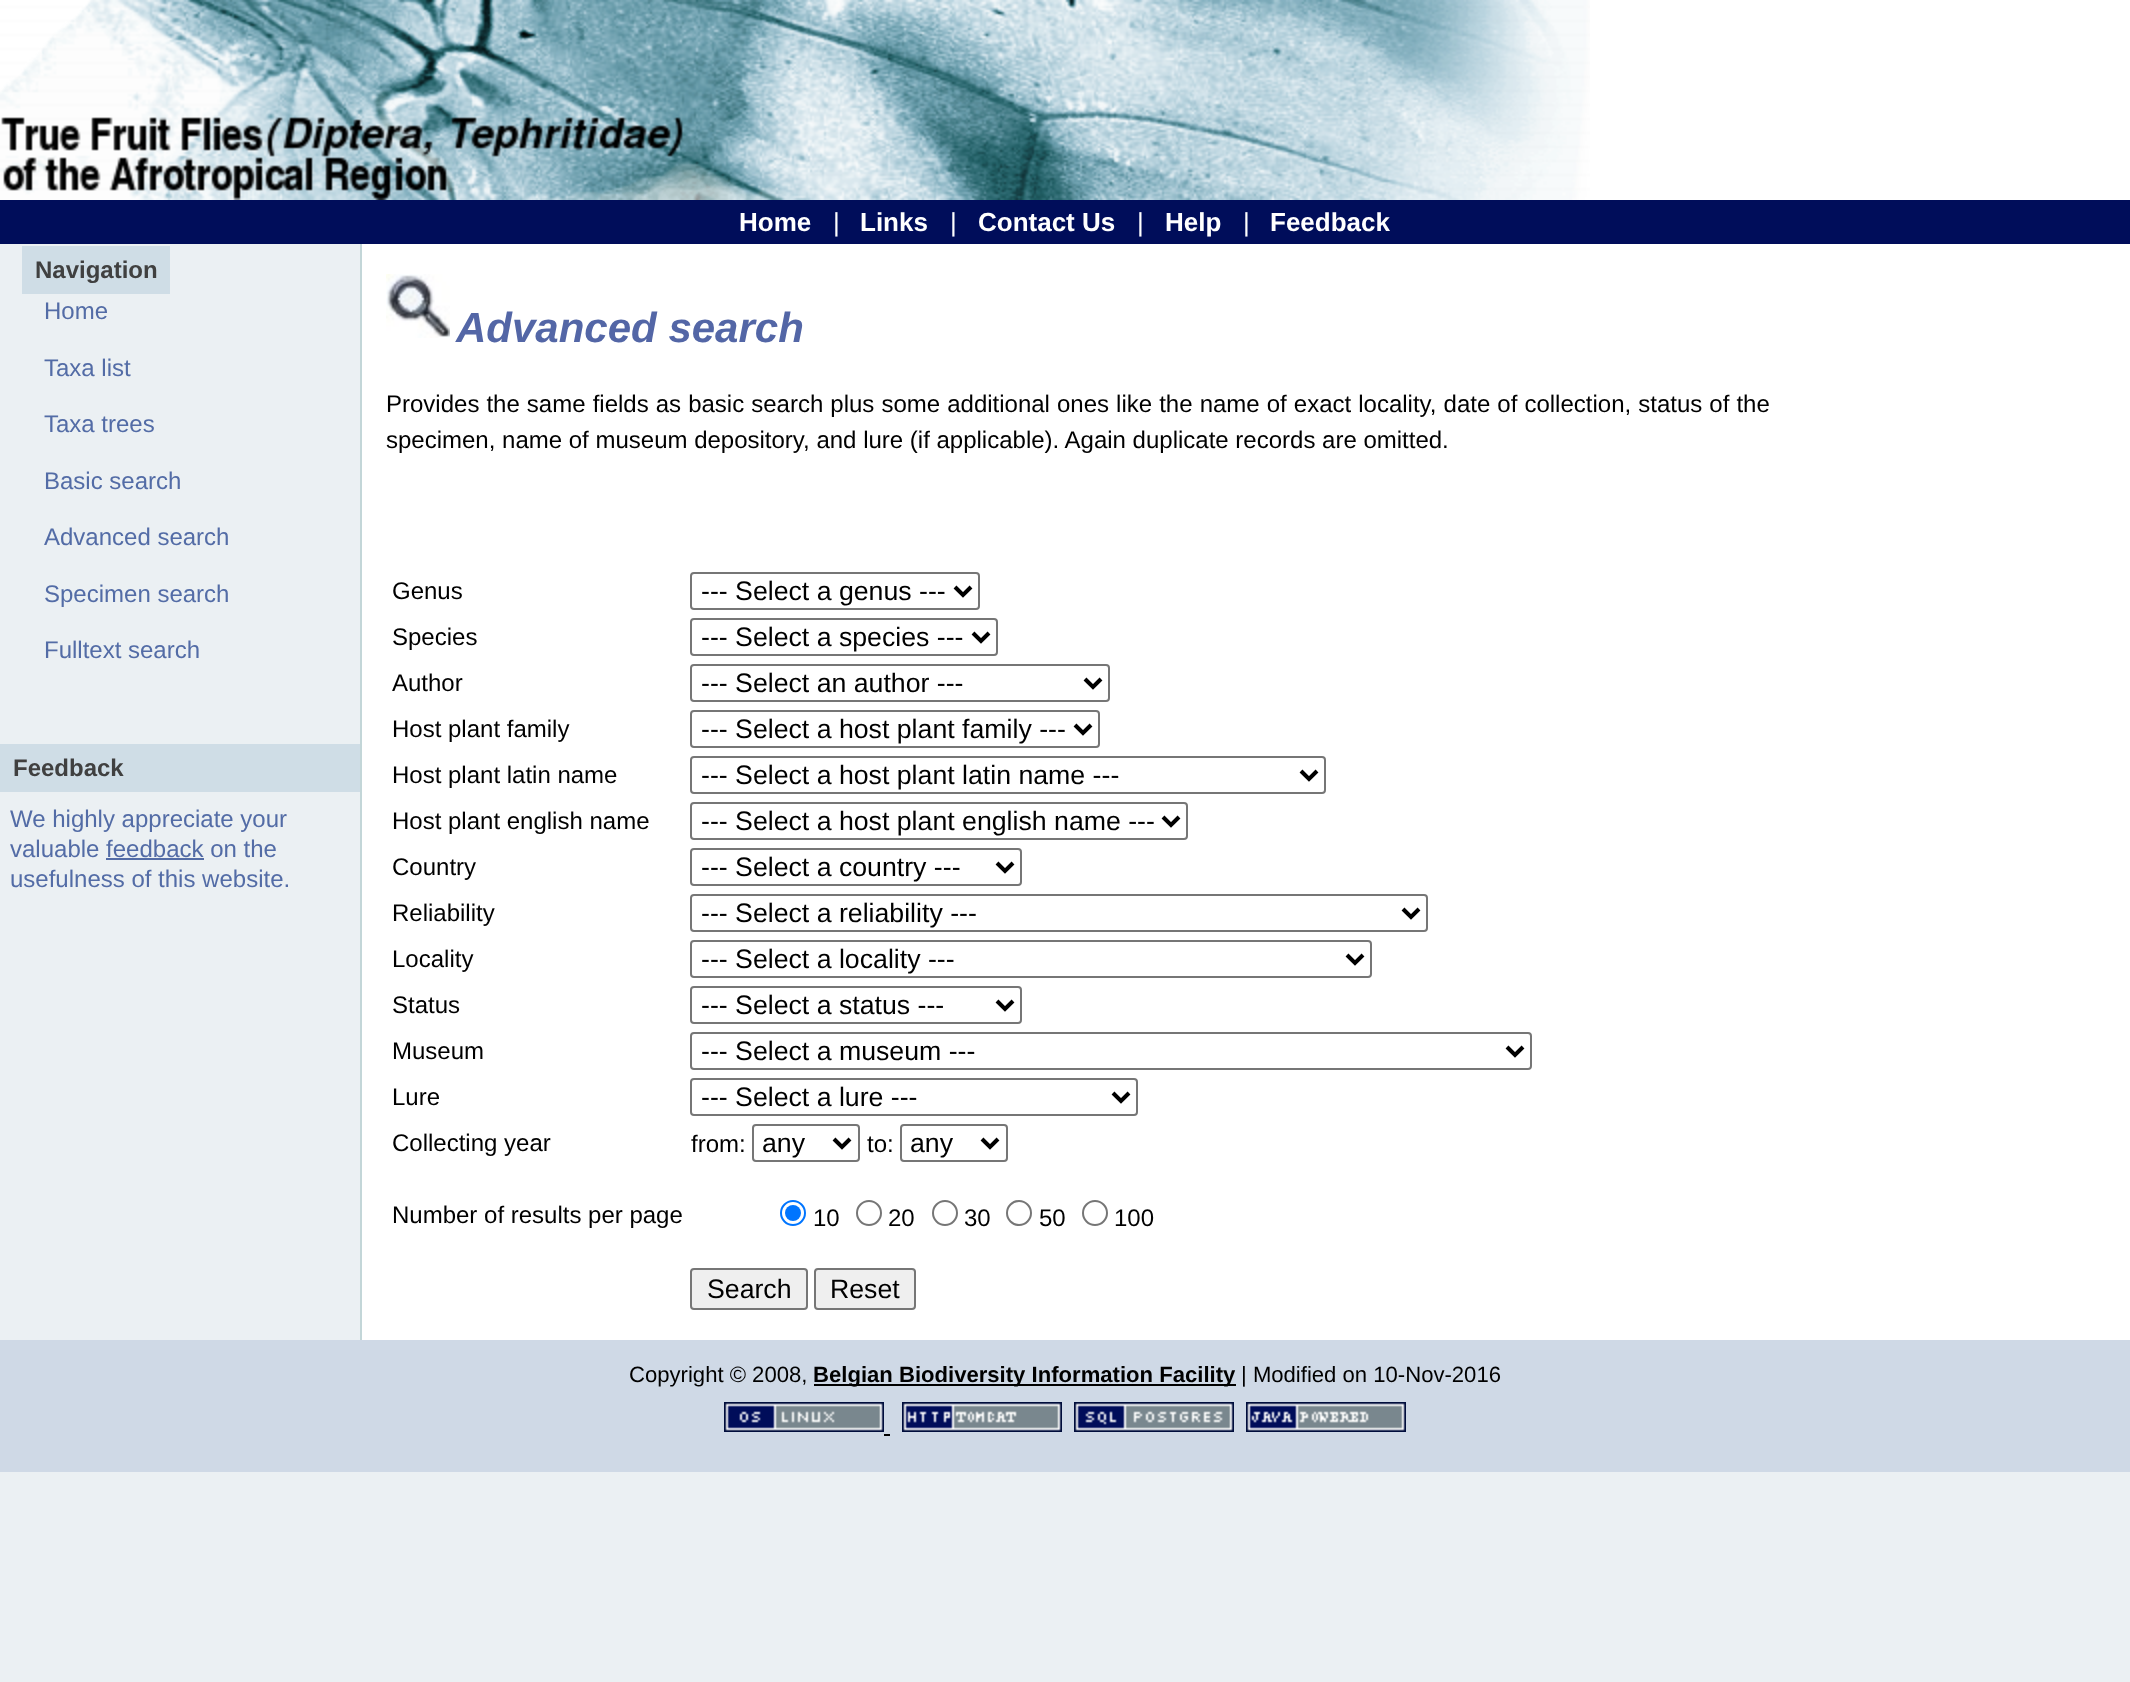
<svg xmlns="http://www.w3.org/2000/svg" width="2130" height="1682" viewBox="0 0 2130 1682">
  <rect width="100%" height="100%" fill="#ebf0f3"/>
  <rect x="0" y="0" width="2130" height="200" fill="#ffffff"/>
  <image x="0" y="0" width="1590" height="200" href="img1.png"/>
  <rect x="0" y="200" width="2130" height="44" fill="#000d5a"/>
  <text x="739" y="231" font-family="Liberation Sans" font-size="26" font-weight="bold" fill="#ffffff">Home</text>
  <text x="833" y="231" font-family="Liberation Sans" font-size="26" fill="#ffffff">|</text>
  <text x="860" y="231" font-family="Liberation Sans" font-size="26" font-weight="bold" fill="#ffffff">Links</text>
  <text x="950" y="231" font-family="Liberation Sans" font-size="26" fill="#ffffff">|</text>
  <text x="978" y="231" font-family="Liberation Sans" font-size="26" font-weight="bold" fill="#ffffff">Contact Us</text>
  <text x="1137" y="231" font-family="Liberation Sans" font-size="26" fill="#ffffff">|</text>
  <text x="1165" y="231" font-family="Liberation Sans" font-size="26" font-weight="bold" fill="#ffffff">Help</text>
  <text x="1243" y="231" font-family="Liberation Sans" font-size="26" fill="#ffffff">|</text>
  <text x="1270" y="231" font-family="Liberation Sans" font-size="26" font-weight="bold" fill="#ffffff">Feedback</text>
  <rect x="22" y="246" width="148" height="48" fill="#cfdde6"/>
  <text x="35" y="278" font-family="Liberation Sans" font-size="24" font-weight="bold" fill="#404040">Navigation</text>
  <text x="44" y="319" font-family="Liberation Sans" font-size="24" fill="#536ca6">Home</text>
  <text x="44" y="376" font-family="Liberation Sans" font-size="24" fill="#536ca6">Taxa list</text>
  <text x="44" y="432" font-family="Liberation Sans" font-size="24" fill="#536ca6">Taxa trees</text>
  <text x="44" y="489" font-family="Liberation Sans" font-size="24" fill="#536ca6">Basic search</text>
  <text x="44" y="545" font-family="Liberation Sans" font-size="24" fill="#536ca6">Advanced search</text>
  <text x="44" y="602" font-family="Liberation Sans" font-size="24" fill="#536ca6">Specimen search</text>
  <text x="44" y="658" font-family="Liberation Sans" font-size="24" fill="#536ca6">Fulltext search</text>
  <rect x="0" y="744" width="360" height="48" fill="#cfdde6"/>
  <text x="13" y="776" font-family="Liberation Sans" font-size="24" font-weight="bold" fill="#404040">Feedback</text>
  <text x="10" y="827" font-family="Liberation Sans" font-size="24" fill="#536ca6">We highly appreciate your</text>
  <text x="10" y="857" font-family="Liberation Sans" font-size="24" fill="#536ca6">valuable feedback on the</text>
  <rect x="106" y="858" width="98" height="2" fill="#536ca6"/>
  <text x="10" y="887" font-family="Liberation Sans" font-size="24" fill="#536ca6">usefulness of this website.</text>
  <rect x="362" y="244" width="1768" height="1096" fill="#ffffff"/>
  <rect x="360" y="244" width="2" height="1096" fill="#c3d6d8"/>
  <image x="386" y="274" width="64" height="64" href="img2.png"/>
  <text x="456" y="342" font-family="Liberation Sans" font-size="42" font-weight="bold" font-style="italic" fill="#5366a6">Advanced search</text>
  <text x="386" y="412" word-spacing="0.4" font-family="Liberation Sans" font-size="24" fill="#000000">Provides the same fields as basic search plus some additional ones like the name of exact locality, date of collection, status of the</text>
  <text x="386" y="448" font-family="Liberation Sans" font-size="24" fill="#000000">specimen, name of museum depository, and lure (if applicable). Again duplicate records are omitted.</text>
  <text x="392" y="599" font-family="Liberation Sans" font-size="24" fill="#000000">Genus</text>
  <rect x="691" y="573" width="288" height="36" rx="3" fill="none" stroke="#767676" stroke-width="2"/>
  <path d="M955 587L963 595L971 587" fill="none" stroke="#000000" stroke-width="4"/>
  <text x="701" y="600" font-family="Liberation Sans" font-size="26.7" fill="#000000">--- Select a genus ---</text>
  <text x="392" y="645" font-family="Liberation Sans" font-size="24" fill="#000000">Species</text>
  <rect x="691" y="619" width="306" height="36" rx="3" fill="none" stroke="#767676" stroke-width="2"/>
  <path d="M973 633L981 641L989 633" fill="none" stroke="#000000" stroke-width="4"/>
  <text x="701" y="646" font-family="Liberation Sans" font-size="26.7" fill="#000000">--- Select a species ---</text>
  <text x="392" y="691" font-family="Liberation Sans" font-size="24" fill="#000000">Author</text>
  <rect x="691" y="665" width="418" height="36" rx="3" fill="none" stroke="#767676" stroke-width="2"/>
  <path d="M1085 679L1093 687L1101 679" fill="none" stroke="#000000" stroke-width="4"/>
  <text x="701" y="692" font-family="Liberation Sans" font-size="26.7" fill="#000000">--- Select an author ---</text>
  <text x="392" y="737" font-family="Liberation Sans" font-size="24" fill="#000000">Host plant family</text>
  <rect x="691" y="711" width="408" height="36" rx="3" fill="none" stroke="#767676" stroke-width="2"/>
  <path d="M1075 725L1083 733L1091 725" fill="none" stroke="#000000" stroke-width="4"/>
  <text x="701" y="738" font-family="Liberation Sans" font-size="26.7" fill="#000000">--- Select a host plant family ---</text>
  <text x="392" y="783" font-family="Liberation Sans" font-size="24" fill="#000000">Host plant latin name</text>
  <rect x="691" y="757" width="634" height="36" rx="3" fill="none" stroke="#767676" stroke-width="2"/>
  <path d="M1301 771L1309 779L1317 771" fill="none" stroke="#000000" stroke-width="4"/>
  <text x="701" y="784" font-family="Liberation Sans" font-size="26.7" fill="#000000">--- Select a host plant latin name ---</text>
  <text x="392" y="829" font-family="Liberation Sans" font-size="24" fill="#000000">Host plant english name</text>
  <rect x="691" y="803" width="496" height="36" rx="3" fill="none" stroke="#767676" stroke-width="2"/>
  <path d="M1163 817L1171 825L1179 817" fill="none" stroke="#000000" stroke-width="4"/>
  <text x="701" y="830" font-family="Liberation Sans" font-size="26.7" fill="#000000">--- Select a host plant english name ---</text>
  <text x="392" y="875" font-family="Liberation Sans" font-size="24" fill="#000000">Country</text>
  <rect x="691" y="849" width="330" height="36" rx="3" fill="none" stroke="#767676" stroke-width="2"/>
  <path d="M997 863L1005 871L1013 863" fill="none" stroke="#000000" stroke-width="4"/>
  <text x="701" y="876" font-family="Liberation Sans" font-size="26.7" fill="#000000">--- Select a country ---</text>
  <text x="392" y="921" font-family="Liberation Sans" font-size="24" fill="#000000">Reliability</text>
  <rect x="691" y="895" width="736" height="36" rx="3" fill="none" stroke="#767676" stroke-width="2"/>
  <path d="M1403 909L1411 917L1419 909" fill="none" stroke="#000000" stroke-width="4"/>
  <text x="701" y="922" font-family="Liberation Sans" font-size="26.7" fill="#000000">--- Select a reliability ---</text>
  <text x="392" y="967" font-family="Liberation Sans" font-size="24" fill="#000000">Locality</text>
  <rect x="691" y="941" width="680" height="36" rx="3" fill="none" stroke="#767676" stroke-width="2"/>
  <path d="M1347 955L1355 963L1363 955" fill="none" stroke="#000000" stroke-width="4"/>
  <text x="701" y="968" font-family="Liberation Sans" font-size="26.7" fill="#000000">--- Select a locality ---</text>
  <text x="392" y="1013" font-family="Liberation Sans" font-size="24" fill="#000000">Status</text>
  <rect x="691" y="987" width="330" height="36" rx="3" fill="none" stroke="#767676" stroke-width="2"/>
  <path d="M997 1001L1005 1009L1013 1001" fill="none" stroke="#000000" stroke-width="4"/>
  <text x="701" y="1014" font-family="Liberation Sans" font-size="26.7" fill="#000000">--- Select a status ---</text>
  <text x="392" y="1059" font-family="Liberation Sans" font-size="24" fill="#000000">Museum</text>
  <rect x="691" y="1033" width="840" height="36" rx="3" fill="none" stroke="#767676" stroke-width="2"/>
  <path d="M1507 1047L1515 1055L1523 1047" fill="none" stroke="#000000" stroke-width="4"/>
  <text x="701" y="1060" font-family="Liberation Sans" font-size="26.7" fill="#000000">--- Select a museum ---</text>
  <text x="392" y="1105" font-family="Liberation Sans" font-size="24" fill="#000000">Lure</text>
  <rect x="691" y="1079" width="446" height="36" rx="3" fill="none" stroke="#767676" stroke-width="2"/>
  <path d="M1113 1093L1121 1101L1129 1093" fill="none" stroke="#000000" stroke-width="4"/>
  <text x="701" y="1106" font-family="Liberation Sans" font-size="26.7" fill="#000000">--- Select a lure ---</text>
  <text x="392" y="1151" font-family="Liberation Sans" font-size="24" fill="#000000">Collecting year</text>
  <text x="691" y="1152" font-family="Liberation Sans" font-size="24" fill="#000000">from:</text>
  <rect x="753" y="1125" width="106" height="36" rx="3" fill="none" stroke="#767676" stroke-width="2"/>
  <path d="M834 1139L842 1147L850 1139" fill="none" stroke="#000000" stroke-width="4"/>
  <text x="762" y="1152" font-family="Liberation Sans" font-size="26.7" fill="#000000">any</text>
  <text x="867" y="1152" font-family="Liberation Sans" font-size="24" fill="#000000">to:</text>
  <rect x="901" y="1125" width="106" height="36" rx="3" fill="none" stroke="#767676" stroke-width="2"/>
  <path d="M982 1139L990 1147L998 1139" fill="none" stroke="#000000" stroke-width="4"/>
  <text x="910" y="1152" font-family="Liberation Sans" font-size="26.7" fill="#000000">any</text>
  <text x="392" y="1223" font-family="Liberation Sans" font-size="24" fill="#000000">Number of results per page</text>
  <circle cx="793" cy="1213" r="12" fill="none" stroke="#0075ff" stroke-width="2"/>
  <circle cx="793" cy="1213" r="8" fill="#0075ff"/>
  <text x="813" y="1226" font-family="Liberation Sans" font-size="24" fill="#000000">10</text>
  <circle cx="869" cy="1213" r="12" fill="none" stroke="#767676" stroke-width="2"/>
  <text x="888" y="1226" font-family="Liberation Sans" font-size="24" fill="#000000">20</text>
  <circle cx="945" cy="1213" r="12" fill="none" stroke="#767676" stroke-width="2"/>
  <text x="964" y="1226" font-family="Liberation Sans" font-size="24" fill="#000000">30</text>
  <circle cx="1019" cy="1213" r="12" fill="none" stroke="#767676" stroke-width="2"/>
  <text x="1039" y="1226" font-family="Liberation Sans" font-size="24" fill="#000000">50</text>
  <circle cx="1095" cy="1213" r="12" fill="none" stroke="#767676" stroke-width="2"/>
  <text x="1114" y="1226" font-family="Liberation Sans" font-size="24" fill="#000000">100</text>
  <rect x="691" y="1269" width="116" height="40" rx="3" fill="#efefef" stroke="#767676" stroke-width="2"/>
  <text x="707" y="1298" font-family="Liberation Sans" font-size="26.7" fill="#000000">Search</text>
  <rect x="815" y="1269" width="100" height="40" rx="3" fill="#efefef" stroke="#767676" stroke-width="2"/>
  <text x="830" y="1298" font-family="Liberation Sans" font-size="26.7" fill="#000000">Reset</text>
  <rect x="0" y="1340" width="2130" height="132" fill="#cfd9e6"/>
  <text x="629" y="1382" font-family="Liberation Sans" font-size="22.1" fill="#000000">Copyright © 2008,</text>
  <rect x="814" y="1384" width="422" height="2" fill="#000000"/>
  <text x="813" y="1382" font-family="Liberation Sans" font-size="22.1" font-weight="bold" fill="#000000">Belgian Biodiversity Information Facility</text>
  <text x="1241" y="1382" font-family="Liberation Sans" font-size="22.1" fill="#000000">| Modified on 10-Nov-2016</text>
  <image x="724" y="1402" width="160" height="30" href="img3.png"/>
  <image x="902" y="1402" width="160" height="30" href="img4.png"/>
  <image x="1074" y="1402" width="160" height="30" href="img5.png"/>
  <image x="1246" y="1402" width="160" height="30" href="img6.png"/>
  <rect x="884" y="1434" width="6" height="2" fill="#000000"/>
</svg>
